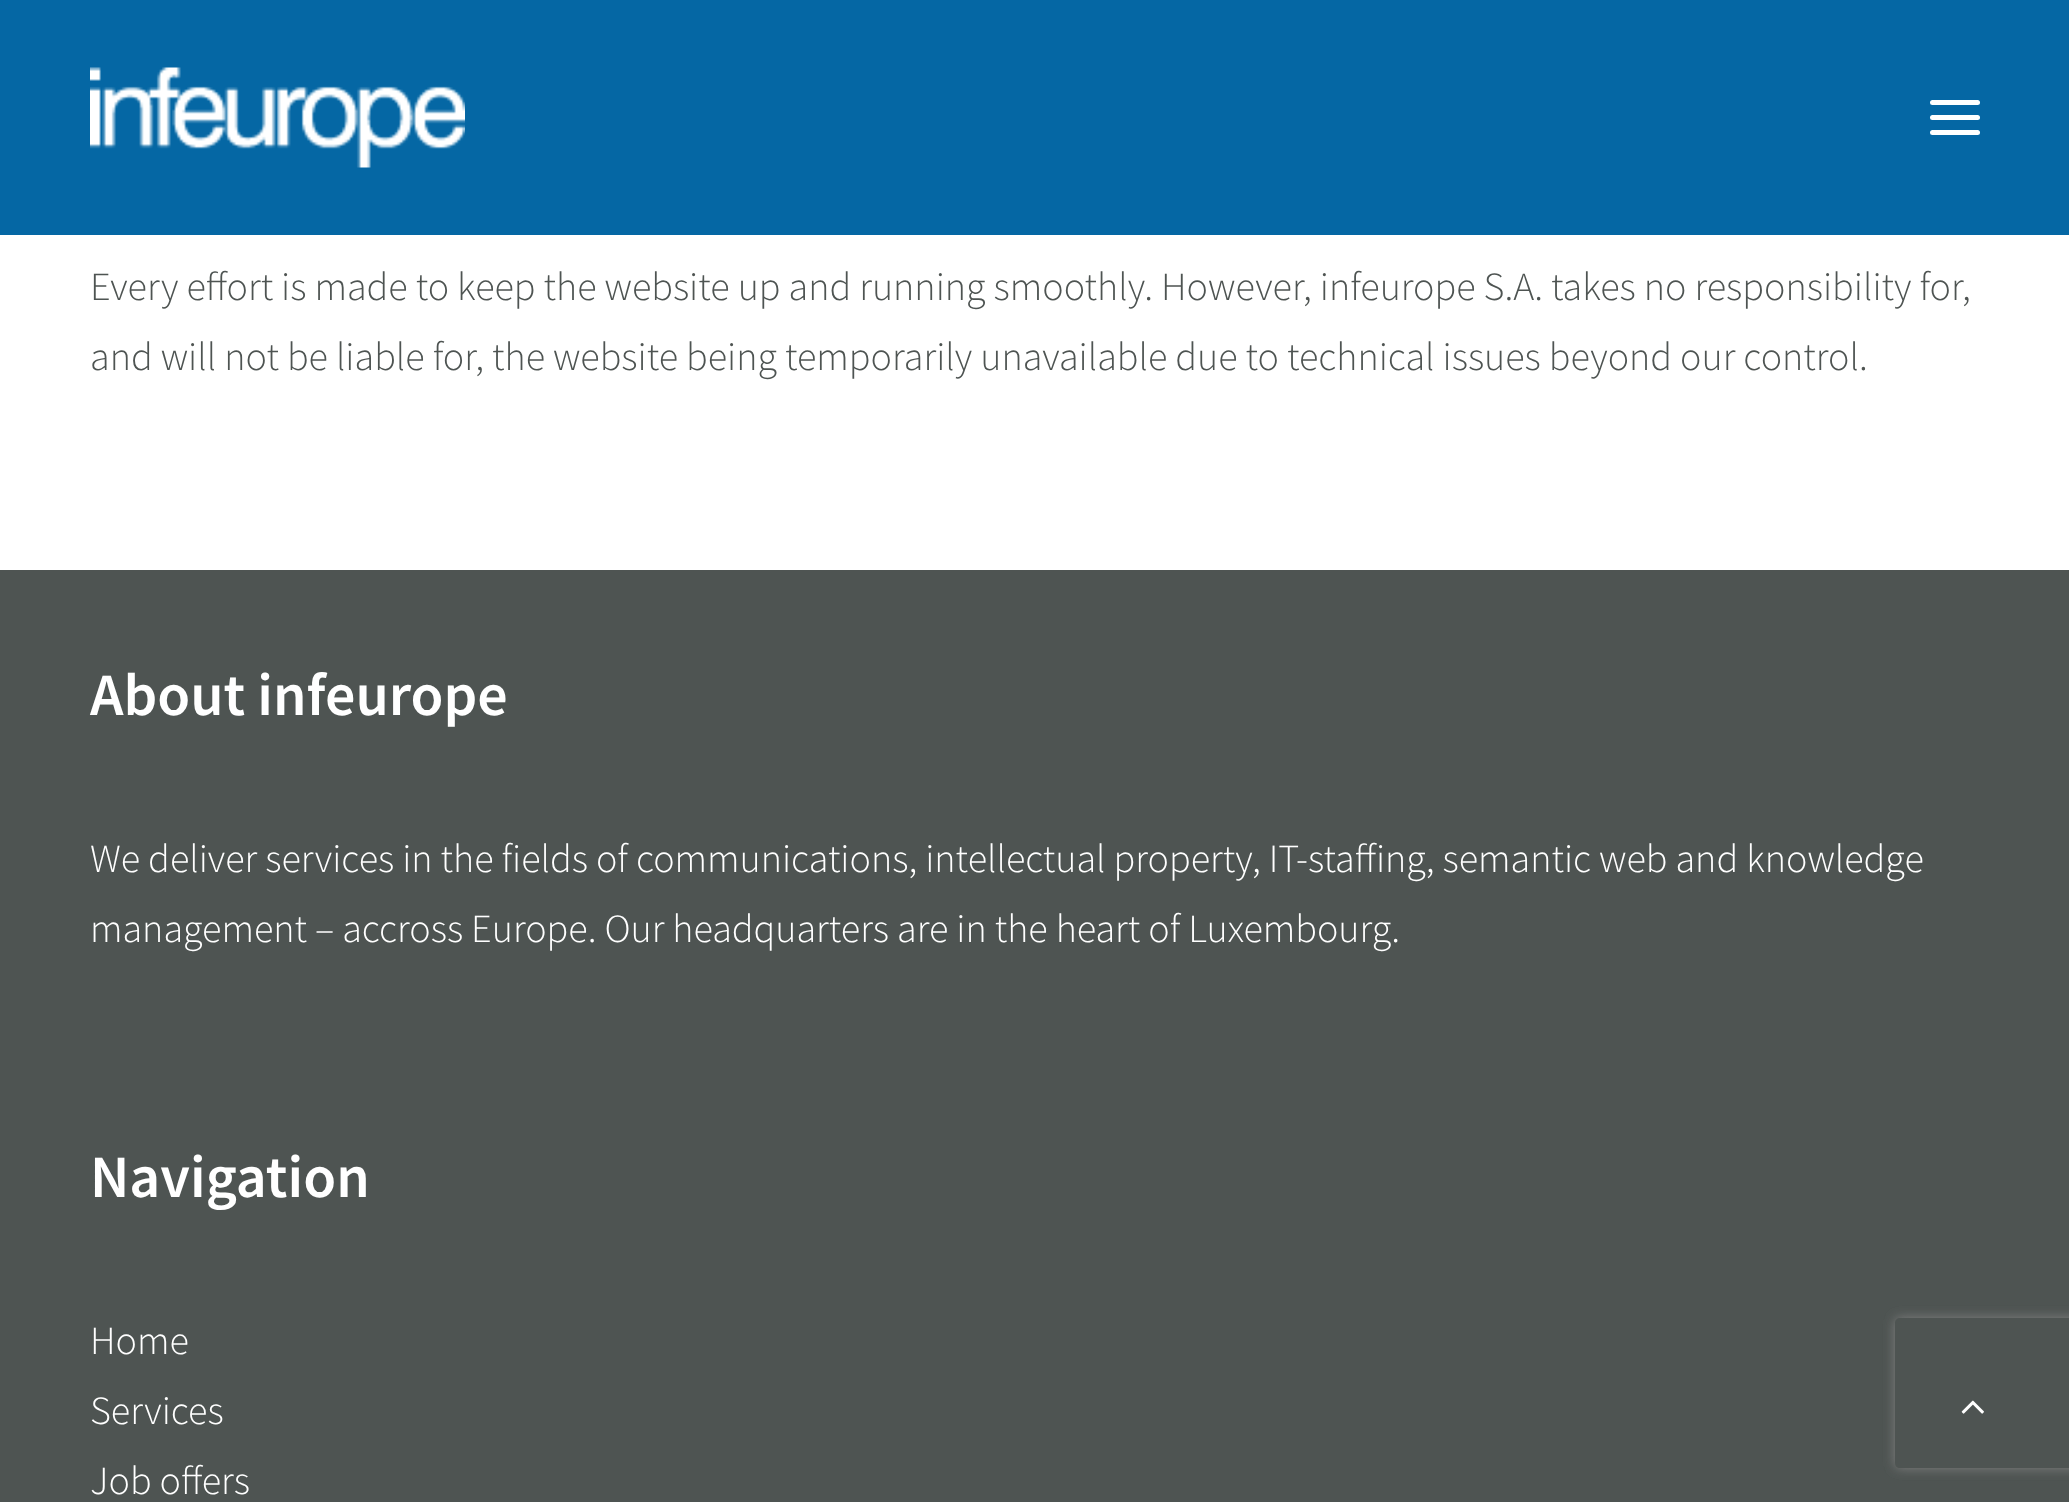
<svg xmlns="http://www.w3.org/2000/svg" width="2069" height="1502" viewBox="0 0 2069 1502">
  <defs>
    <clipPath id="clip1"><path d="M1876 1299H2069V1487H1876ZM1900 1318H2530C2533 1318 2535 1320 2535 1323V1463C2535 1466 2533 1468 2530 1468H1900C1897 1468 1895 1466 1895 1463V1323C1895 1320 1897 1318 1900 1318Z" clip-rule="evenodd"/></clipPath>
    <filter id="blur1" x="-50%" y="-200%" width="200%" height="500%"><feGaussianBlur stdDeviation="6"/></filter>
  </defs>
  <rect width="100%" height="100%" fill="#ffffff"/>
  <rect x="0" y="0" width="2069" height="235" fill="#0567a4"/>
  <image x="90" y="67" width="375" height="101" href="img1.png"/>
  <rect x="1930" y="115" width="50" height="5" rx="2.5" fill="#ffffff"/>
  <rect x="1930" y="100" width="50" height="5" rx="2.5" fill="#ffffff"/>
  <rect x="1930" y="130" width="50" height="5" rx="2.5" fill="#ffffff"/>
  <text x="90" y="300" font-family="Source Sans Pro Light" font-size="40" font-weight="300" fill="#4e5452">Every effort is made to keep the website up and running smoothly. However, infeurope S.A. takes no responsibility for,</text>
  <text x="90" y="370" font-family="Source Sans Pro Light" font-size="40" font-weight="300" fill="#4e5452">and will not be liable for, the website being temporarily unavailable due to technical issues beyond our control.</text>
  <rect x="0" y="570" width="2069" height="932" fill="#4e5452"/>
  <text x="90" y="715" font-family="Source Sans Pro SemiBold" font-size="60" font-weight="600" fill="#ffffff">About infeurope</text>
  <text x="90" y="872" font-family="Source Sans Pro Light" font-size="40" font-weight="300" fill="#ffffff">We deliver services in the fields of communications, intellectual property, IT-staffing, semantic web and knowledge</text>
  <text x="90" y="942" font-family="Source Sans Pro Light" font-size="40" font-weight="300" fill="#ffffff">management – accross Europe. Our headquarters are in the heart of Luxembourg.</text>
  <text x="90" y="1197" font-family="Source Sans Pro SemiBold" font-size="60" font-weight="600" fill="#ffffff">Navigation</text>
  <text x="90" y="1354" font-family="Source Sans Pro Light" font-size="40" font-weight="300" fill="#ffffff">Home</text>
  <text x="90" y="1424" font-family="Source Sans Pro Light" font-size="40" font-weight="300" fill="#ffffff">Services</text>
  <text x="90" y="1494" font-family="Source Sans Pro Light" font-size="40" font-weight="300" fill="#ffffff">Job offers</text>
  <g clip-path="url(#clip1)">
    <rect x="1895" y="1318" width="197" height="150" rx="5" fill="#808080" filter="url(#blur1)"/>
  </g>
  <image x="1961" y="1400" width="23" height="14" href="img2.png"/>
</svg>
